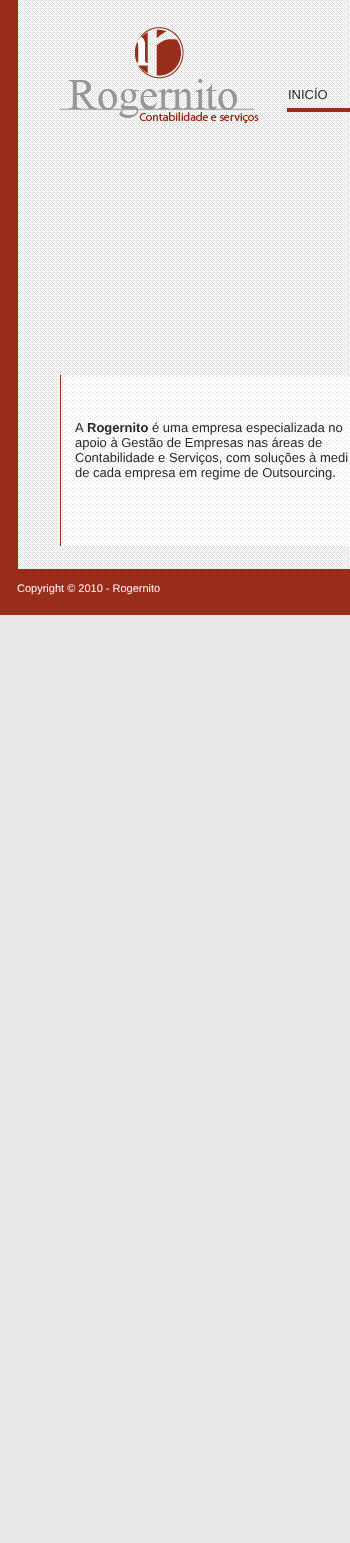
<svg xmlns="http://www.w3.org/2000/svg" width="350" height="1543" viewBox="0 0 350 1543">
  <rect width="100%" height="100%" fill="#e8e8e8"/>
  <rect x="0" y="0" width="18" height="569" fill="#9a2c1b"/>
  <image x="18" y="0" width="332" height="569" href="img1.png"/>
  <image x="59" y="27" width="200" height="96" href="img2.png"/>
  <text x="288" y="99" font-family="Liberation Sans" font-size="13" fill="#282828">INICÍO</text>
  <rect x="287" y="108" width="63" height="4" fill="#9a2c1b"/>
  <rect x="60" y="375" width="1" height="171" fill="#9a2c1b"/>
  <image x="61" y="376" width="289" height="170" href="img3.png"/>
  <text x="75" y="432" font-family="Liberation Sans" font-size="13" fill="#282828">A</text>
  <text x="87" y="432" font-family="Liberation Sans" font-size="13" font-weight="bold" fill="#282828">Rogernito</text>
  <text x="152" y="432" font-family="Liberation Sans" font-size="13" fill="#282828">é uma empresa especializada no</text>
  <text x="75" y="447" font-family="Liberation Sans" font-size="13" fill="#282828">apoio à Gestão de Empresas nas áreas de</text>
  <text x="75" y="462" font-family="Liberation Sans" font-size="13" fill="#282828">Contabilidade e Serviços, com soluções à medi</text>
  <text x="75" y="477" font-family="Liberation Sans" font-size="13" fill="#282828">de cada empresa em regime de Outsourcing.</text>
  <rect x="0" y="569" width="350" height="46" fill="#9a2c1b"/>
  <text x="17" y="592" font-family="Liberation Sans" font-size="11" fill="#ffffff">Copyright © 2010 - Rogernito</text>
</svg>
